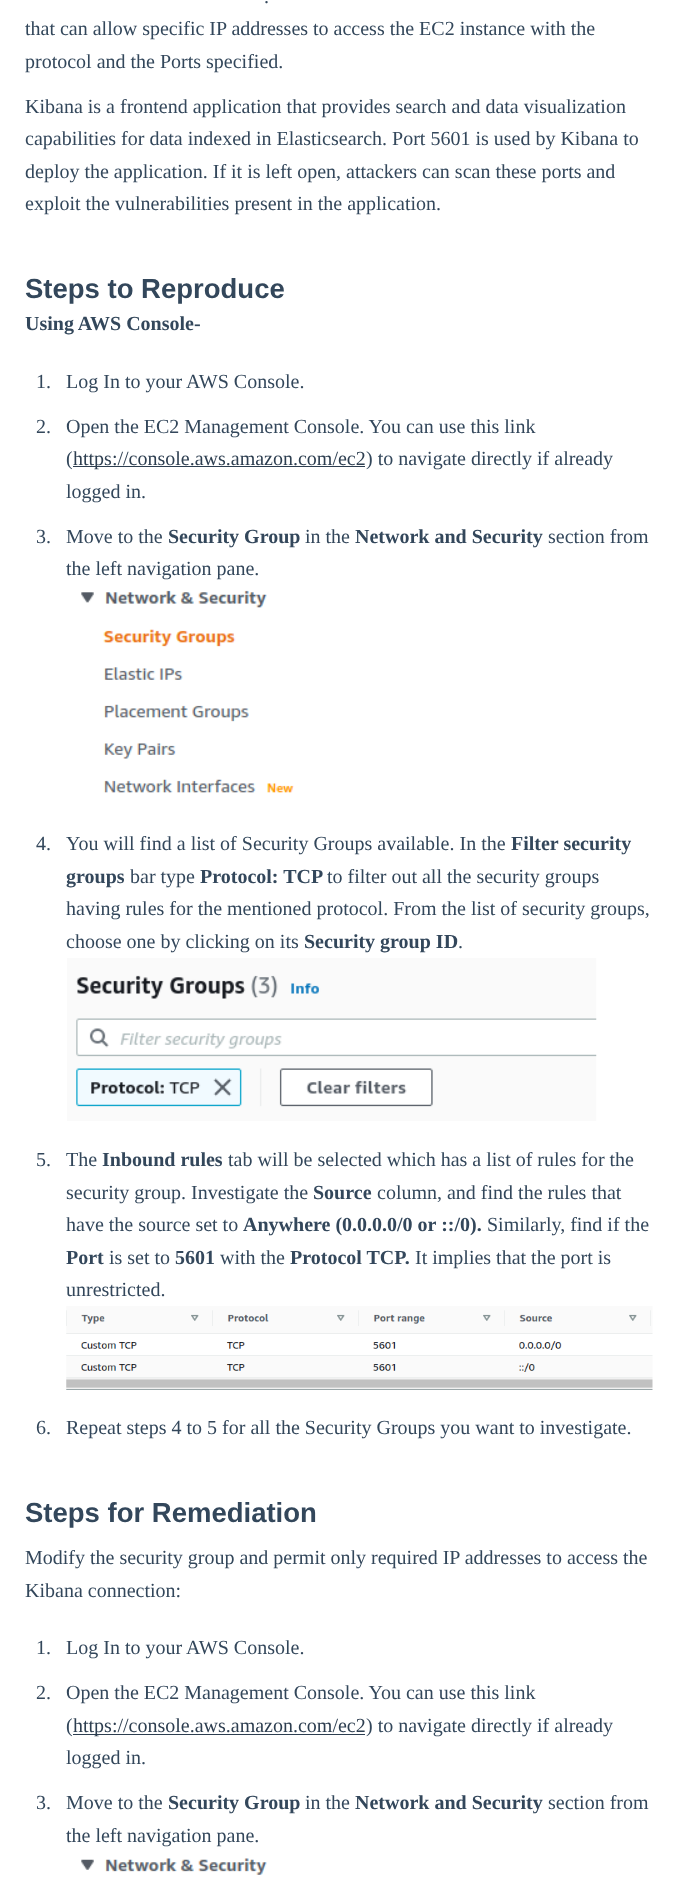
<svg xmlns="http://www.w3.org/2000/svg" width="677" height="1881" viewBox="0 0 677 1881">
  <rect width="100%" height="100%" fill="#ffffff"/>
  <text x="264" y="3" font-family="Liberation Serif" font-size="20" fill="#33475b">.</text>
  <text x="25" y="35" font-family="Liberation Serif" font-size="20" fill="#33475b">that can allow specific IP addresses to access the EC2 instance with the</text>
  <text x="25" y="68" font-family="Liberation Serif" font-size="20" fill="#33475b">protocol and the Ports specified.</text>
  <text x="25" y="113" font-family="Liberation Serif" font-size="20" fill="#33475b">Kibana is a frontend application that provides search and data visualization</text>
  <text x="25" y="145" font-family="Liberation Serif" font-size="20" fill="#33475b">capabilities for data indexed in Elasticsearch. Port 5601 is used by Kibana to</text>
  <text x="25" y="178" font-family="Liberation Serif" font-size="20" fill="#33475b">deploy the application. If it is left open, attackers can scan these ports and</text>
  <text x="25" y="210" font-family="Liberation Serif" font-size="20" fill="#33475b">exploit the vulnerabilities present in the application.</text>
  <text x="25" y="298" font-family="Liberation Sans" font-size="27.5" font-weight="bold" fill="#33475b">Steps to Reproduce</text>
  <text x="25" y="330" font-family="Liberation Serif" font-size="20" font-weight="bold" fill="#33475b">Using AWS Console-</text>
  <text x="36" y="388" font-family="Liberation Serif" font-size="20" fill="#33475b">1.</text>
  <text x="66" y="388" font-family="Liberation Serif" font-size="20" fill="#33475b">Log In to your AWS Console.</text>
  <text x="36" y="433" font-family="Liberation Serif" font-size="20" fill="#33475b">2.</text>
  <text x="66" y="433" font-family="Liberation Serif" font-size="20" fill="#33475b">Open the EC2 Management Console. You can use this link</text>
  <text x="66" y="465" font-family="Liberation Serif" font-size="20" fill="#33475b">(</text>
  <rect x="73" y="466" width="292" height="1" fill="#2d3e50"/>
  <text x="73" y="465" font-family="Liberation Serif" font-size="20" fill="#2d3e50">https://console.aws.amazon.com/ec2</text>
  <text x="366" y="465" font-family="Liberation Serif" font-size="20" fill="#33475b">) to navigate directly if already</text>
  <text x="66" y="498" font-family="Liberation Serif" font-size="20" fill="#33475b">logged in.</text>
  <text x="36" y="543" font-family="Liberation Serif" font-size="20" fill="#33475b">3.</text>
  <text x="66" y="543" font-family="Liberation Serif" font-size="20" fill="#33475b">Move to the</text>
  <text x="168" y="543" font-family="Liberation Serif" font-size="20" font-weight="bold" fill="#33475b">Security Group</text>
  <text x="305" y="543" font-family="Liberation Serif" font-size="20" fill="#33475b">in the</text>
  <text x="355" y="543" font-family="Liberation Serif" font-size="20" font-weight="bold" fill="#33475b">Network and Security</text>
  <text x="548" y="543" font-family="Liberation Serif" font-size="20" fill="#33475b">section from</text>
  <text x="66" y="575" font-family="Liberation Serif" font-size="20" fill="#33475b">the left navigation pane.</text>
  <image x="81" y="590" width="213" height="203" href="img1.png"/>
  <text x="36" y="850" font-family="Liberation Serif" font-size="20" fill="#33475b">4.</text>
  <text x="66" y="850" font-family="Liberation Serif" font-size="20" fill="#33475b">You will find a list of Security Groups available. In the</text>
  <text x="511" y="850" font-family="Liberation Serif" font-size="20" font-weight="bold" fill="#33475b">Filter security</text>
  <text x="66" y="883" font-family="Liberation Serif" font-size="20" font-weight="bold" fill="#33475b">groups</text>
  <text x="130" y="883" font-family="Liberation Serif" font-size="20" fill="#33475b">bar type</text>
  <text x="200" y="883" font-family="Liberation Serif" font-size="20" font-weight="bold" fill="#33475b">Protocol: TCP</text>
  <text x="327" y="883" font-family="Liberation Serif" font-size="20" fill="#33475b">to filter out all the security groups</text>
  <text x="66" y="915" font-family="Liberation Serif" font-size="20" fill="#33475b">having rules for the mentioned protocol. From the list of security groups,</text>
  <text x="66" y="948" font-family="Liberation Serif" font-size="20" fill="#33475b">choose one by clicking on its</text>
  <text x="304" y="948" font-family="Liberation Serif" font-size="20" font-weight="bold" fill="#33475b">Security group ID</text>
  <text x="458" y="948" font-family="Liberation Serif" font-size="20" fill="#33475b">.</text>
  <image x="67" y="958" width="530" height="163" href="img2.png"/>
  <text x="36" y="1166" font-family="Liberation Serif" font-size="20" fill="#33475b">5.</text>
  <text x="66" y="1166" font-family="Liberation Serif" font-size="20" fill="#33475b">The</text>
  <text x="102" y="1166" font-family="Liberation Serif" font-size="20" font-weight="bold" fill="#33475b">Inbound rules</text>
  <text x="228" y="1166" font-family="Liberation Serif" font-size="20" fill="#33475b">tab will be selected which has a list of rules for the</text>
  <text x="66" y="1199" font-family="Liberation Serif" font-size="20" fill="#33475b">security group. Investigate the</text>
  <text x="313" y="1199" font-family="Liberation Serif" font-size="20" font-weight="bold" fill="#33475b">Source</text>
  <text x="377" y="1199" font-family="Liberation Serif" font-size="20" fill="#33475b">column, and find the rules that</text>
  <text x="66" y="1231" font-family="Liberation Serif" font-size="20" fill="#33475b">have the source set to</text>
  <text x="243" y="1231" font-family="Liberation Serif" font-size="20" font-weight="bold" fill="#33475b">Anywhere (0.0.0.0/0 or ::/0).</text>
  <text x="487" y="1231" font-family="Liberation Serif" font-size="20" fill="#33475b">Similarly, find if the</text>
  <text x="66" y="1264" font-family="Liberation Serif" font-size="20" font-weight="bold" fill="#33475b">Port</text>
  <text x="109" y="1264" font-family="Liberation Serif" font-size="20" fill="#33475b">is set to</text>
  <text x="175" y="1264" font-family="Liberation Serif" font-size="20" font-weight="bold" fill="#33475b">5601</text>
  <text x="220" y="1264" font-family="Liberation Serif" font-size="20" fill="#33475b">with the</text>
  <text x="290" y="1264" font-family="Liberation Serif" font-size="20" font-weight="bold" fill="#33475b">Protocol TCP.</text>
  <text x="415" y="1264" font-family="Liberation Serif" font-size="20" fill="#33475b">It implies that the port is</text>
  <text x="66" y="1296" font-family="Liberation Serif" font-size="20" fill="#33475b">unrestricted.</text>
  <image x="66" y="1306" width="587" height="84" href="img3.png"/>
  <text x="36" y="1434" font-family="Liberation Serif" font-size="20" fill="#33475b">6.</text>
  <text x="66" y="1434" font-family="Liberation Serif" font-size="20" fill="#33475b">Repeat steps 4 to 5 for all the Security Groups you want to investigate.</text>
  <text x="25" y="1522" font-family="Liberation Sans" font-size="27.5" font-weight="bold" fill="#33475b">Steps for Remediation</text>
  <text x="25" y="1564" font-family="Liberation Serif" font-size="20" fill="#33475b">Modify the security group and permit only required IP addresses to access the</text>
  <text x="25" y="1597" font-family="Liberation Serif" font-size="20" fill="#33475b">Kibana connection:</text>
  <text x="36" y="1654" font-family="Liberation Serif" font-size="20" fill="#33475b">1.</text>
  <text x="66" y="1654" font-family="Liberation Serif" font-size="20" fill="#33475b">Log In to your AWS Console.</text>
  <text x="36" y="1699" font-family="Liberation Serif" font-size="20" fill="#33475b">2.</text>
  <text x="66" y="1699" font-family="Liberation Serif" font-size="20" fill="#33475b">Open the EC2 Management Console. You can use this link</text>
  <text x="66" y="1732" font-family="Liberation Serif" font-size="20" fill="#33475b">(</text>
  <rect x="73" y="1734" width="292" height="1" fill="#2d3e50"/>
  <text x="73" y="1732" font-family="Liberation Serif" font-size="20" fill="#2d3e50">https://console.aws.amazon.com/ec2</text>
  <text x="366" y="1732" font-family="Liberation Serif" font-size="20" fill="#33475b">) to navigate directly if already</text>
  <text x="66" y="1764" font-family="Liberation Serif" font-size="20" fill="#33475b">logged in.</text>
  <text x="36" y="1809" font-family="Liberation Serif" font-size="20" fill="#33475b">3.</text>
  <text x="66" y="1809" font-family="Liberation Serif" font-size="20" fill="#33475b">Move to the</text>
  <text x="168" y="1809" font-family="Liberation Serif" font-size="20" font-weight="bold" fill="#33475b">Security Group</text>
  <text x="305" y="1809" font-family="Liberation Serif" font-size="20" fill="#33475b">in the</text>
  <text x="355" y="1809" font-family="Liberation Serif" font-size="20" font-weight="bold" fill="#33475b">Network and Security</text>
  <text x="548" y="1809" font-family="Liberation Serif" font-size="20" fill="#33475b">section from</text>
  <text x="66" y="1842" font-family="Liberation Serif" font-size="20" fill="#33475b">the left navigation pane.</text>
  <image x="81" y="1858" width="186" height="17" href="img4.png"/>
</svg>
